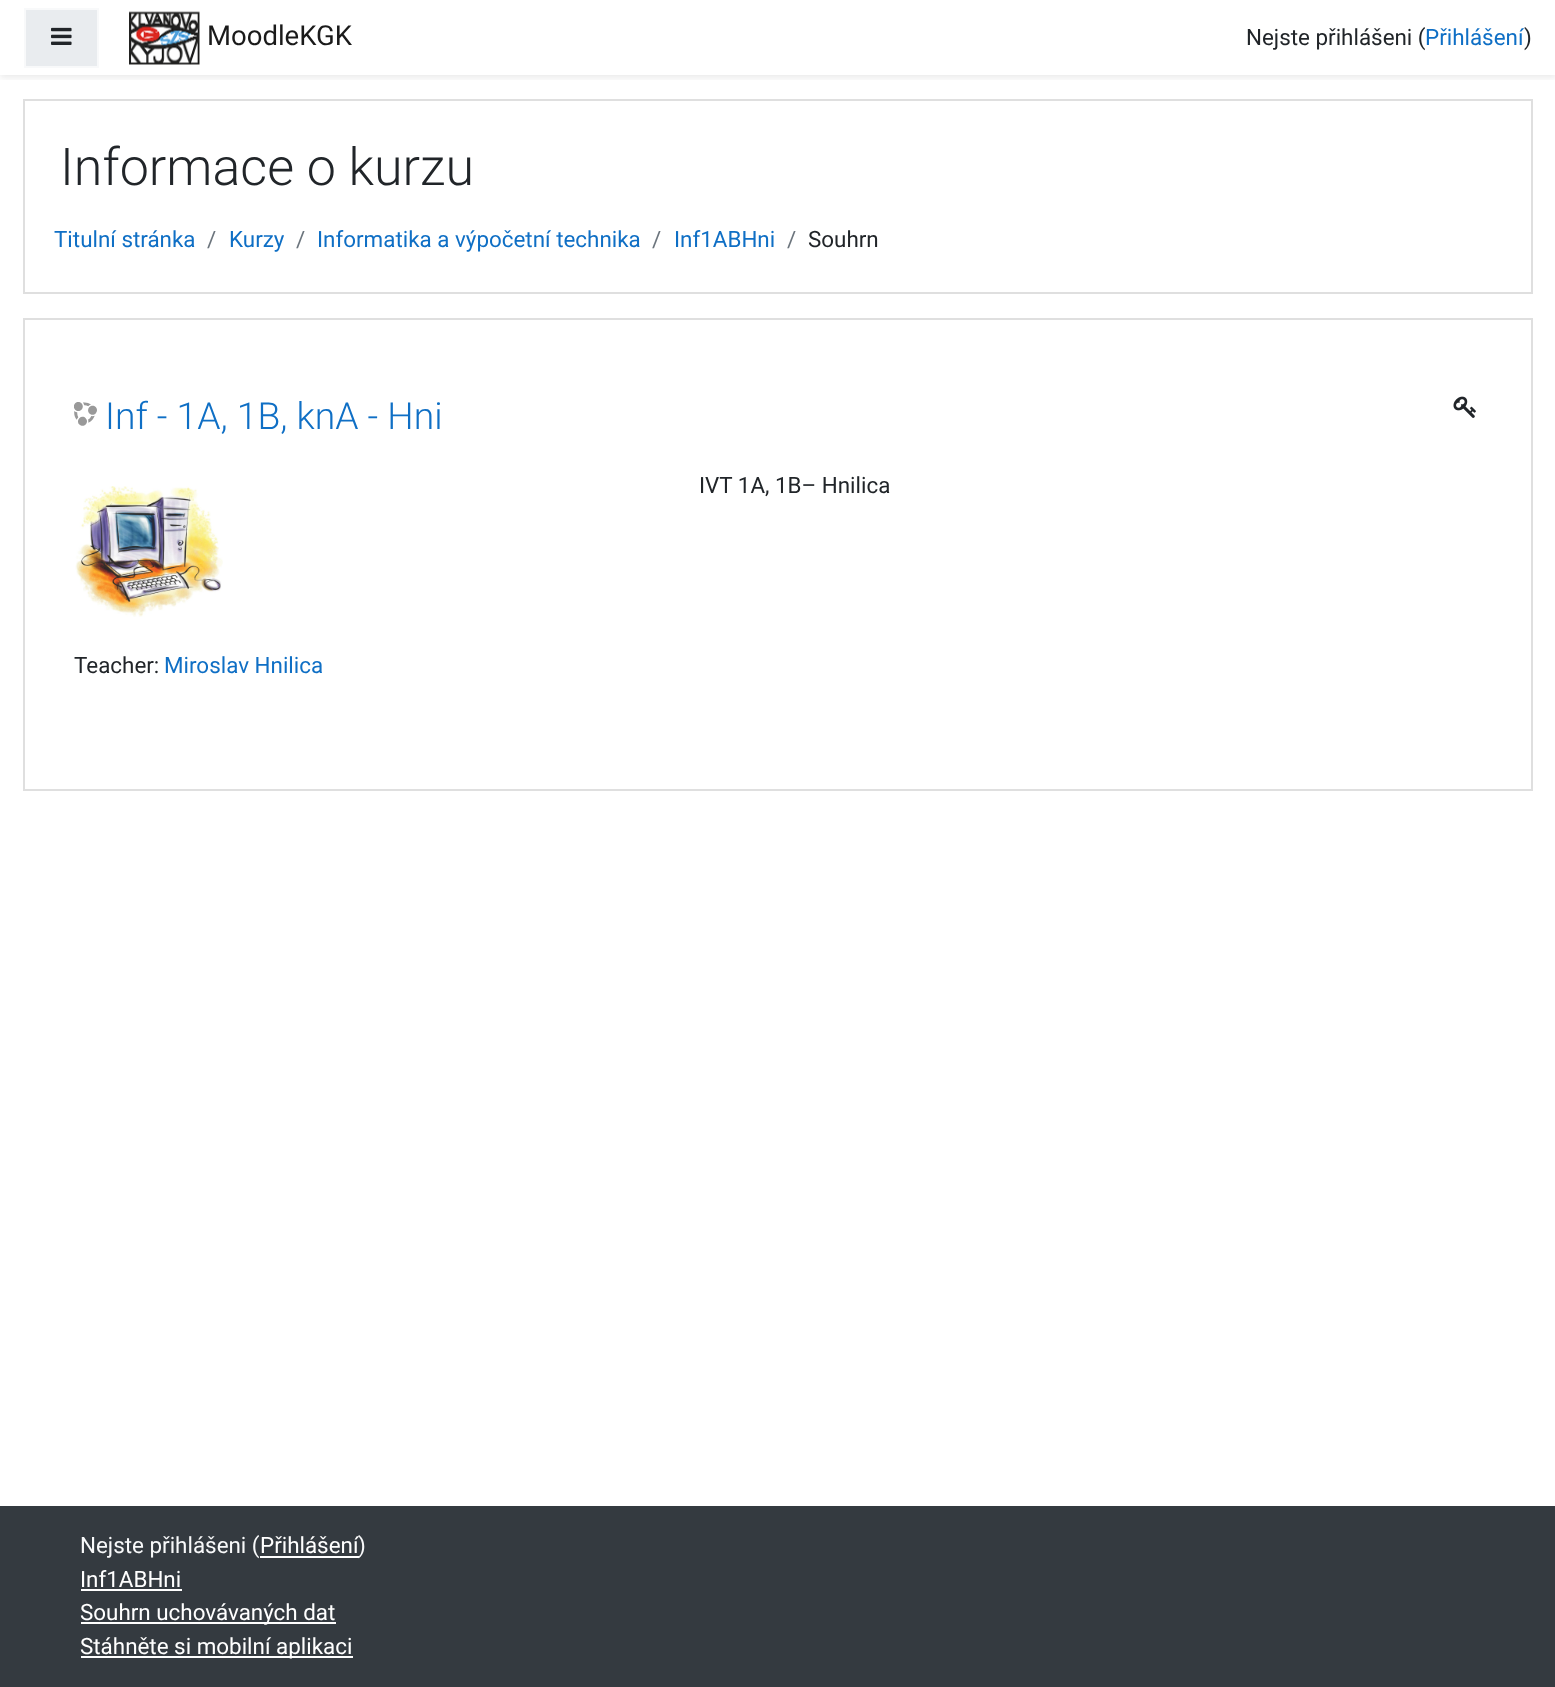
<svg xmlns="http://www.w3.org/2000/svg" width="1555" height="1687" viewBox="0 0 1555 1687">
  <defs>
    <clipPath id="clip1"><rect x="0" y="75" width="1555" height="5"/></clipPath>
    <filter id="blur1" x="-50%" y="-200%" width="200%" height="500%"><feGaussianBlur stdDeviation="3"/></filter>
  </defs>
  <rect width="100%" height="100%" fill="#ffffff"/>
  <g clip-path="url(#clip1)">
    <rect x="0" y="3" width="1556" height="75" fill="#000000" fill-opacity="0.08" filter="url(#blur1)"/>
  </g>
  <rect x="25" y="9" width="73" height="58" fill="#e9ecef" stroke="#f8f9fa" stroke-width="2"/>
  <image x="51" y="27" width="21" height="18" href="img1.png"/>
  <image x="129" y="11" width="71" height="54" href="img2.png"/>
  <text x="207" y="45" font-family="Roboto" font-size="27.5" fill="#1a1a1a">MoodleKGK</text>
  <text x="1246" y="45" font-family="Roboto" font-size="22.4" fill="#212529">Nejste přihlášeni (</text>
  <text x="1425" y="45" font-family="Roboto" font-size="22.4" fill="#0f6fc5">Přihlášení</text>
  <text x="1524" y="45" font-family="Roboto" font-size="22.4" fill="#212529">)</text>
  <rect x="24" y="100" width="1508" height="193" fill="none" stroke="#dfdfdf" stroke-width="2"/>
  <text x="60" y="185" font-family="Roboto" font-size="52" font-weight="300" fill="#212529">Informace o kurzu</text>
  <text x="54" y="247" font-family="Roboto" font-size="22.4" fill="#0f6fc5">Titulní stránka</text>
  <text x="207" y="247" font-family="Roboto" font-size="22.4" fill="#6c757d">/</text>
  <text x="229" y="247" font-family="Roboto" font-size="22.4" fill="#0f6fc5">Kurzy</text>
  <text x="296" y="247" font-family="Roboto" font-size="22.4" fill="#6c757d">/</text>
  <text x="317" y="247" font-family="Roboto" font-size="22.4" fill="#0f6fc5">Informatika a výpočetní technika</text>
  <text x="652" y="247" font-family="Roboto" font-size="22.4" fill="#6c757d">/</text>
  <text x="674" y="247" font-family="Roboto" font-size="22.4" fill="#0f6fc5">Inf1ABHni</text>
  <text x="787" y="247" font-family="Roboto" font-size="22.4" fill="#6c757d">/</text>
  <text x="808" y="247" font-family="Roboto" font-size="22.4" fill="#212529">Souhrn</text>
  <rect x="24" y="319" width="1508" height="471" fill="none" stroke="#dfdfdf" stroke-width="2"/>
  <image x="74" y="402" width="23" height="24" href="img3.png"/>
  <text x="105" y="429" font-family="Roboto" font-size="37.25" font-weight="300" fill="#0f6fc5">Inf - 1A, 1B, knA - Hni</text>
  <image x="1453" y="396" width="23" height="22" href="img4.png"/>
  <image x="75" y="486" width="148" height="131" href="img5.png"/>
  <text x="699" y="493" font-family="Roboto" font-size="22.4" fill="#212529">IVT 1A, 1B– Hnilica</text>
  <text x="74" y="673" font-family="Roboto" font-size="22.4" fill="#212529">Teacher:</text>
  <text x="164" y="673" font-family="Roboto" font-size="22.4" fill="#0f6fc5">Miroslav Hnilica</text>
  <rect x="0" y="1506" width="1555" height="181" fill="#343a40"/>
  <text x="80" y="1553" font-family="Roboto" font-size="22.4" fill="#f8f9fa">Nejste přihlášeni (</text>
  <text x="260" y="1553" font-family="Roboto" font-size="22.4" fill="#ffffff">Přihlášení</text>
  <rect x="260" y="1556" width="99" height="2" fill="#ffffff"/>
  <text x="358" y="1553" font-family="Roboto" font-size="22.4" fill="#f8f9fa">)</text>
  <text x="80" y="1587" font-family="Roboto" font-size="22.4" fill="#ffffff">Inf1ABHni</text>
  <rect x="81" y="1589" width="101" height="2" fill="#ffffff"/>
  <rect x="81" y="1622" width="255" height="2" fill="#ffffff"/>
  <text x="80" y="1620" font-family="Roboto" font-size="22.4" fill="#ffffff">Souhrn uchovávaných dat</text>
  <rect x="81" y="1656" width="272" height="2" fill="#ffffff"/>
  <text x="80" y="1654" font-family="Roboto" font-size="22.4" fill="#ffffff">Stáhněte si mobilní aplikaci</text>
</svg>
